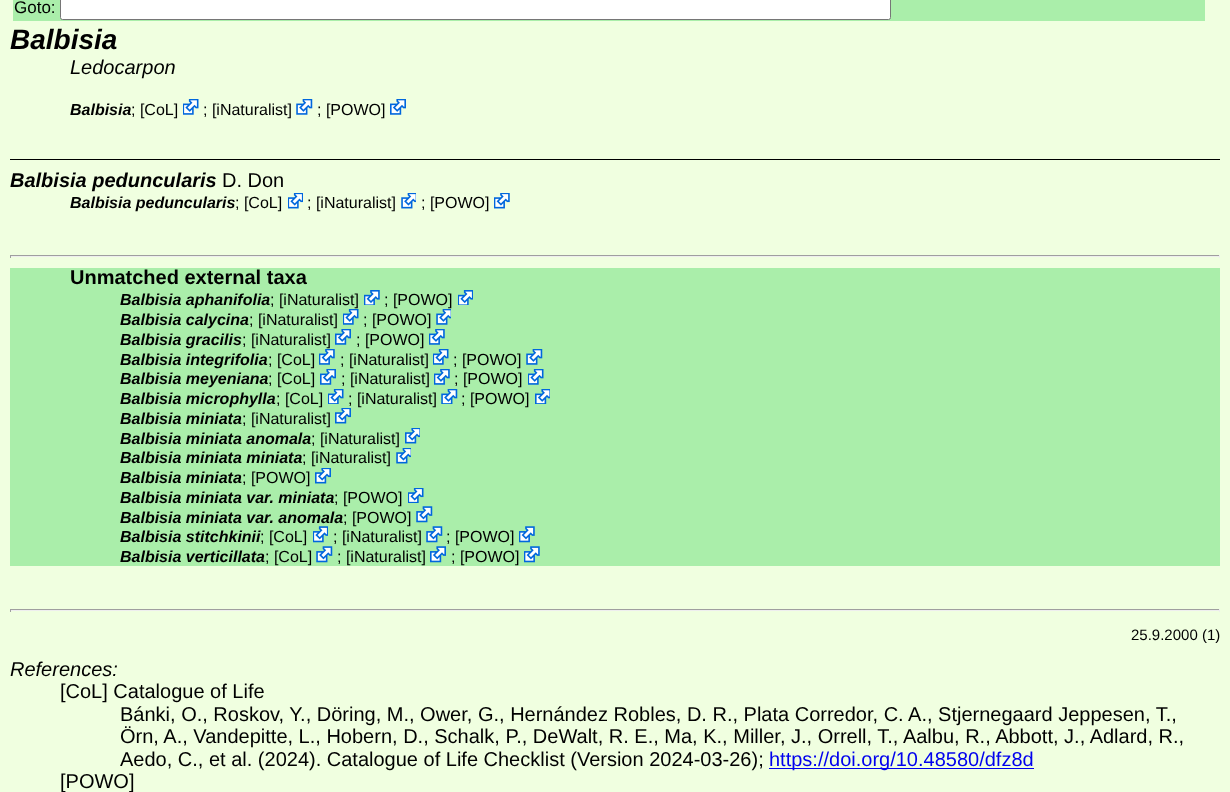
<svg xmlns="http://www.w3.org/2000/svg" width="1230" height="792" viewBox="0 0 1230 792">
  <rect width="100%" height="100%" fill="#f0ffe0"/>
  <rect x="13" y="0" width="1192" height="21" fill="#aaeeaa"/>
  <text x="14" y="13" font-family="Liberation Sans" font-size="17" fill="#000000">Goto:</text>
  <rect x="60.5" y="-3.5" width="830" height="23" rx="2" fill="#ffffff" stroke="#767676"/>
  <text x="10" y="49" font-family="Liberation Sans" font-size="28" font-weight="bold" font-style="italic" fill="#000000">Balbisia</text>
  <text x="70" y="74" font-family="Liberation Sans" font-size="20" font-style="italic" fill="#000000">Ledocarpon</text>
  <text x="70" y="115" font-family="Liberation Sans" font-size="16" font-weight="bold" font-style="italic" fill="#000000">Balbisia</text>
  <text x="131" y="115" font-family="Liberation Sans" font-size="16" fill="#000000">; [CoL]</text>
  <image x="183" y="99" width="16" height="16" href="img1.png"/>
  <text x="203" y="115" font-family="Liberation Sans" font-size="16" fill="#000000">; [iNaturalist]</text>
  <image x="296" y="99" width="17" height="16" href="img2.png"/>
  <text x="317" y="115" font-family="Liberation Sans" font-size="16" fill="#000000">; [POWO]</text>
  <image x="390" y="99" width="16" height="16" href="img3.png"/>
  <rect x="10" y="159" width="1210" height="1" fill="#000000"/>
  <text x="10" y="187" font-family="Liberation Sans" font-size="20" font-weight="bold" font-style="italic" fill="#000000">Balbisia peduncularis</text>
  <text x="222" y="187" font-family="Liberation Sans" font-size="20" fill="#000000">D. Don</text>
  <text x="70" y="208" font-family="Liberation Sans" font-size="16" font-weight="bold" font-style="italic" fill="#000000">Balbisia peduncularis</text>
  <text x="235" y="208" font-family="Liberation Sans" font-size="16" fill="#000000">; [CoL]</text>
  <image x="288" y="193" width="15" height="16" href="img4.png"/>
  <text x="307" y="208" font-family="Liberation Sans" font-size="16" fill="#000000">; [iNaturalist]</text>
  <image x="401" y="193" width="15" height="16" href="img5.png"/>
  <text x="421" y="208" font-family="Liberation Sans" font-size="16" fill="#000000">; [POWO]</text>
  <image x="494" y="193" width="16" height="16" href="img6.png"/>
  <rect x="10" y="255" width="1210" height="1" fill="#9f9f9f"/>
  <rect x="1219" y="255" width="1" height="3" fill="#eeeeee"/>
  <rect x="10" y="256" width="1210" height="1" fill="#eeeeee"/>
  <rect x="10" y="255" width="1" height="3" fill="#9f9f9f"/>
  <rect x="10" y="268" width="1210" height="298" fill="#aaeeaa"/>
  <text x="70" y="284" font-family="Liberation Sans" font-size="20" font-weight="bold" fill="#000000">Unmatched external taxa</text>
  <text x="120" y="305" font-family="Liberation Sans" font-size="16" font-weight="bold" font-style="italic" fill="#000000">Balbisia aphanifolia</text>
  <text x="270" y="305" font-family="Liberation Sans" font-size="16" fill="#000000">; [iNaturalist]</text>
  <image x="364" y="290" width="16" height="15" href="img7.png"/>
  <text x="384" y="305" font-family="Liberation Sans" font-size="16" fill="#000000">; [POWO]</text>
  <image x="458" y="290" width="15" height="15" href="img8.png"/>
  <text x="120" y="325" font-family="Liberation Sans" font-size="16" font-weight="bold" font-style="italic" fill="#000000">Balbisia calycina</text>
  <text x="249" y="325" font-family="Liberation Sans" font-size="16" fill="#000000">; [iNaturalist]</text>
  <image x="343" y="309" width="16" height="16" href="img9.png"/>
  <text x="363" y="325" font-family="Liberation Sans" font-size="16" fill="#000000">; [POWO]</text>
  <image x="436" y="309" width="15" height="16" href="img10.png"/>
  <text x="120" y="345" font-family="Liberation Sans" font-size="16" font-weight="bold" font-style="italic" fill="#000000">Balbisia gracilis</text>
  <text x="242" y="345" font-family="Liberation Sans" font-size="16" fill="#000000">; [iNaturalist]</text>
  <image x="335" y="329" width="16" height="16" href="img11.png"/>
  <text x="356" y="345" font-family="Liberation Sans" font-size="16" fill="#000000">; [POWO]</text>
  <image x="429" y="329" width="16" height="16" href="img12.png"/>
  <text x="120" y="365" font-family="Liberation Sans" font-size="16" font-weight="bold" font-style="italic" fill="#000000">Balbisia integrifolia</text>
  <text x="268" y="365" font-family="Liberation Sans" font-size="16" fill="#000000">; [CoL]</text>
  <image x="319" y="349" width="16" height="16" href="img12.png"/>
  <text x="340" y="365" font-family="Liberation Sans" font-size="16" fill="#000000">; [iNaturalist]</text>
  <image x="433" y="349" width="16" height="16" href="img9.png"/>
  <text x="453" y="365" font-family="Liberation Sans" font-size="16" fill="#000000">; [POWO]</text>
  <image x="526" y="349" width="17" height="16" href="img13.png"/>
  <text x="120" y="384" font-family="Liberation Sans" font-size="16" font-weight="bold" font-style="italic" fill="#000000">Balbisia meyeniana</text>
  <text x="268" y="384" font-family="Liberation Sans" font-size="16" fill="#000000">; [CoL]</text>
  <image x="320" y="369" width="16" height="16" href="img11.png"/>
  <text x="341" y="384" font-family="Liberation Sans" font-size="16" fill="#000000">; [iNaturalist]</text>
  <image x="434" y="369" width="16" height="16" href="img12.png"/>
  <text x="454" y="384" font-family="Liberation Sans" font-size="16" fill="#000000">; [POWO]</text>
  <image x="528" y="369" width="16" height="16" href="img9.png"/>
  <text x="120" y="404" font-family="Liberation Sans" font-size="16" font-weight="bold" font-style="italic" fill="#000000">Balbisia microphylla</text>
  <text x="276" y="404" font-family="Liberation Sans" font-size="16" fill="#000000">; [CoL]</text>
  <image x="328" y="389" width="16" height="15" href="img14.png"/>
  <text x="348" y="404" font-family="Liberation Sans" font-size="16" fill="#000000">; [iNaturalist]</text>
  <image x="441" y="389" width="17" height="15" href="img15.png"/>
  <text x="461" y="404" font-family="Liberation Sans" font-size="16" fill="#000000">; [POWO]</text>
  <image x="535" y="389" width="15" height="15" href="img16.png"/>
  <text x="120" y="424" font-family="Liberation Sans" font-size="16" font-weight="bold" font-style="italic" fill="#000000">Balbisia miniata</text>
  <text x="242" y="424" font-family="Liberation Sans" font-size="16" fill="#000000">; [iNaturalist]</text>
  <image x="335" y="408" width="16" height="16" href="img17.png"/>
  <text x="120" y="444" font-family="Liberation Sans" font-size="16" font-weight="bold" font-style="italic" fill="#000000">Balbisia miniata anomala</text>
  <text x="311" y="444" font-family="Liberation Sans" font-size="16" fill="#000000">; [iNaturalist]</text>
  <image x="405" y="428" width="15" height="16" href="img18.png"/>
  <text x="120" y="463" font-family="Liberation Sans" font-size="16" font-weight="bold" font-style="italic" fill="#000000">Balbisia miniata miniata</text>
  <text x="302" y="463" font-family="Liberation Sans" font-size="16" fill="#000000">; [iNaturalist]</text>
  <image x="396" y="448" width="15" height="16" href="img19.png"/>
  <text x="120" y="483" font-family="Liberation Sans" font-size="16" font-weight="bold" font-style="italic" fill="#000000">Balbisia miniata</text>
  <text x="242" y="483" font-family="Liberation Sans" font-size="16" fill="#000000">; [POWO]</text>
  <image x="315" y="468" width="16" height="16" href="img17.png"/>
  <text x="120" y="503" font-family="Liberation Sans" font-size="16" font-weight="bold" font-style="italic" fill="#000000">Balbisia miniata var. miniata</text>
  <text x="334" y="503" font-family="Liberation Sans" font-size="16" fill="#000000">; [POWO]</text>
  <image x="408" y="488" width="16" height="15" href="img20.png"/>
  <text x="120" y="523" font-family="Liberation Sans" font-size="16" font-weight="bold" font-style="italic" fill="#000000">Balbisia miniata var. anomala</text>
  <text x="343" y="523" font-family="Liberation Sans" font-size="16" fill="#000000">; [POWO]</text>
  <image x="416" y="506" width="17" height="17" href="img21.png"/>
  <text x="120" y="542" font-family="Liberation Sans" font-size="16" font-weight="bold" font-style="italic" fill="#000000">Balbisia stitchkinii</text>
  <text x="260" y="542" font-family="Liberation Sans" font-size="16" fill="#000000">; [CoL]</text>
  <image x="313" y="526" width="15" height="17" href="img22.png"/>
  <text x="333" y="542" font-family="Liberation Sans" font-size="16" fill="#000000">; [iNaturalist]</text>
  <image x="426" y="526" width="17" height="17" href="img21.png"/>
  <text x="446" y="542" font-family="Liberation Sans" font-size="16" fill="#000000">; [POWO]</text>
  <image x="519" y="526" width="16" height="17" href="img23.png"/>
  <text x="120" y="562" font-family="Liberation Sans" font-size="16" font-weight="bold" font-style="italic" fill="#000000">Balbisia verticillata</text>
  <text x="265" y="562" font-family="Liberation Sans" font-size="16" fill="#000000">; [CoL]</text>
  <image x="316" y="546" width="17" height="17" href="img21.png"/>
  <text x="337" y="562" font-family="Liberation Sans" font-size="16" fill="#000000">; [iNaturalist]</text>
  <image x="430" y="546" width="16" height="17" href="img24.png"/>
  <text x="451" y="562" font-family="Liberation Sans" font-size="16" fill="#000000">; [POWO]</text>
  <image x="524" y="546" width="16" height="17" href="img23.png"/>
  <rect x="10" y="609" width="1210" height="1" fill="#9f9f9f"/>
  <rect x="1219" y="609" width="1" height="3" fill="#eeeeee"/>
  <rect x="10" y="610" width="1210" height="1" fill="#eeeeee"/>
  <rect x="10" y="609" width="1" height="3" fill="#9f9f9f"/>
  <text x="1131" y="640" font-family="Liberation Sans" font-size="15" fill="#000000">25.9.2000 (1)</text>
  <text x="10" y="676" font-family="Liberation Sans" font-size="20" font-style="italic" fill="#000000">References:</text>
  <text x="60" y="698" font-family="Liberation Sans" font-size="20" fill="#000000">[CoL] Catalogue of Life</text>
  <text x="120" y="721" font-family="Liberation Sans" font-size="20" fill="#000000">Bánki, O., Roskov, Y., Döring, M., Ower, G., Hernández Robles, D. R., Plata Corredor, C. A., Stjernegaard Jeppesen, T.,</text>
  <text x="120" y="743" font-family="Liberation Sans" font-size="20" fill="#000000">Örn, A., Vandepitte, L., Hobern, D., Schalk, P., DeWalt, R. E., Ma, K., Miller, J., Orrell, T., Aalbu, R., Abbott, J., Adlard, R.,</text>
  <text x="120" y="766" font-family="Liberation Sans" font-size="20" fill="#000000">Aedo, C., et al. (2024). Catalogue of Life Checklist (Version 2024-03-26);</text>
  <rect x="769" y="768" width="265" height="1" fill="#0000ee"/>
  <text x="769" y="766" font-family="Liberation Sans" font-size="20" fill="#0000ee">https://doi.org/10.48580/dfz8d</text>
  <text x="60" y="788" font-family="Liberation Sans" font-size="20" fill="#000000">[POWO]</text>
</svg>
